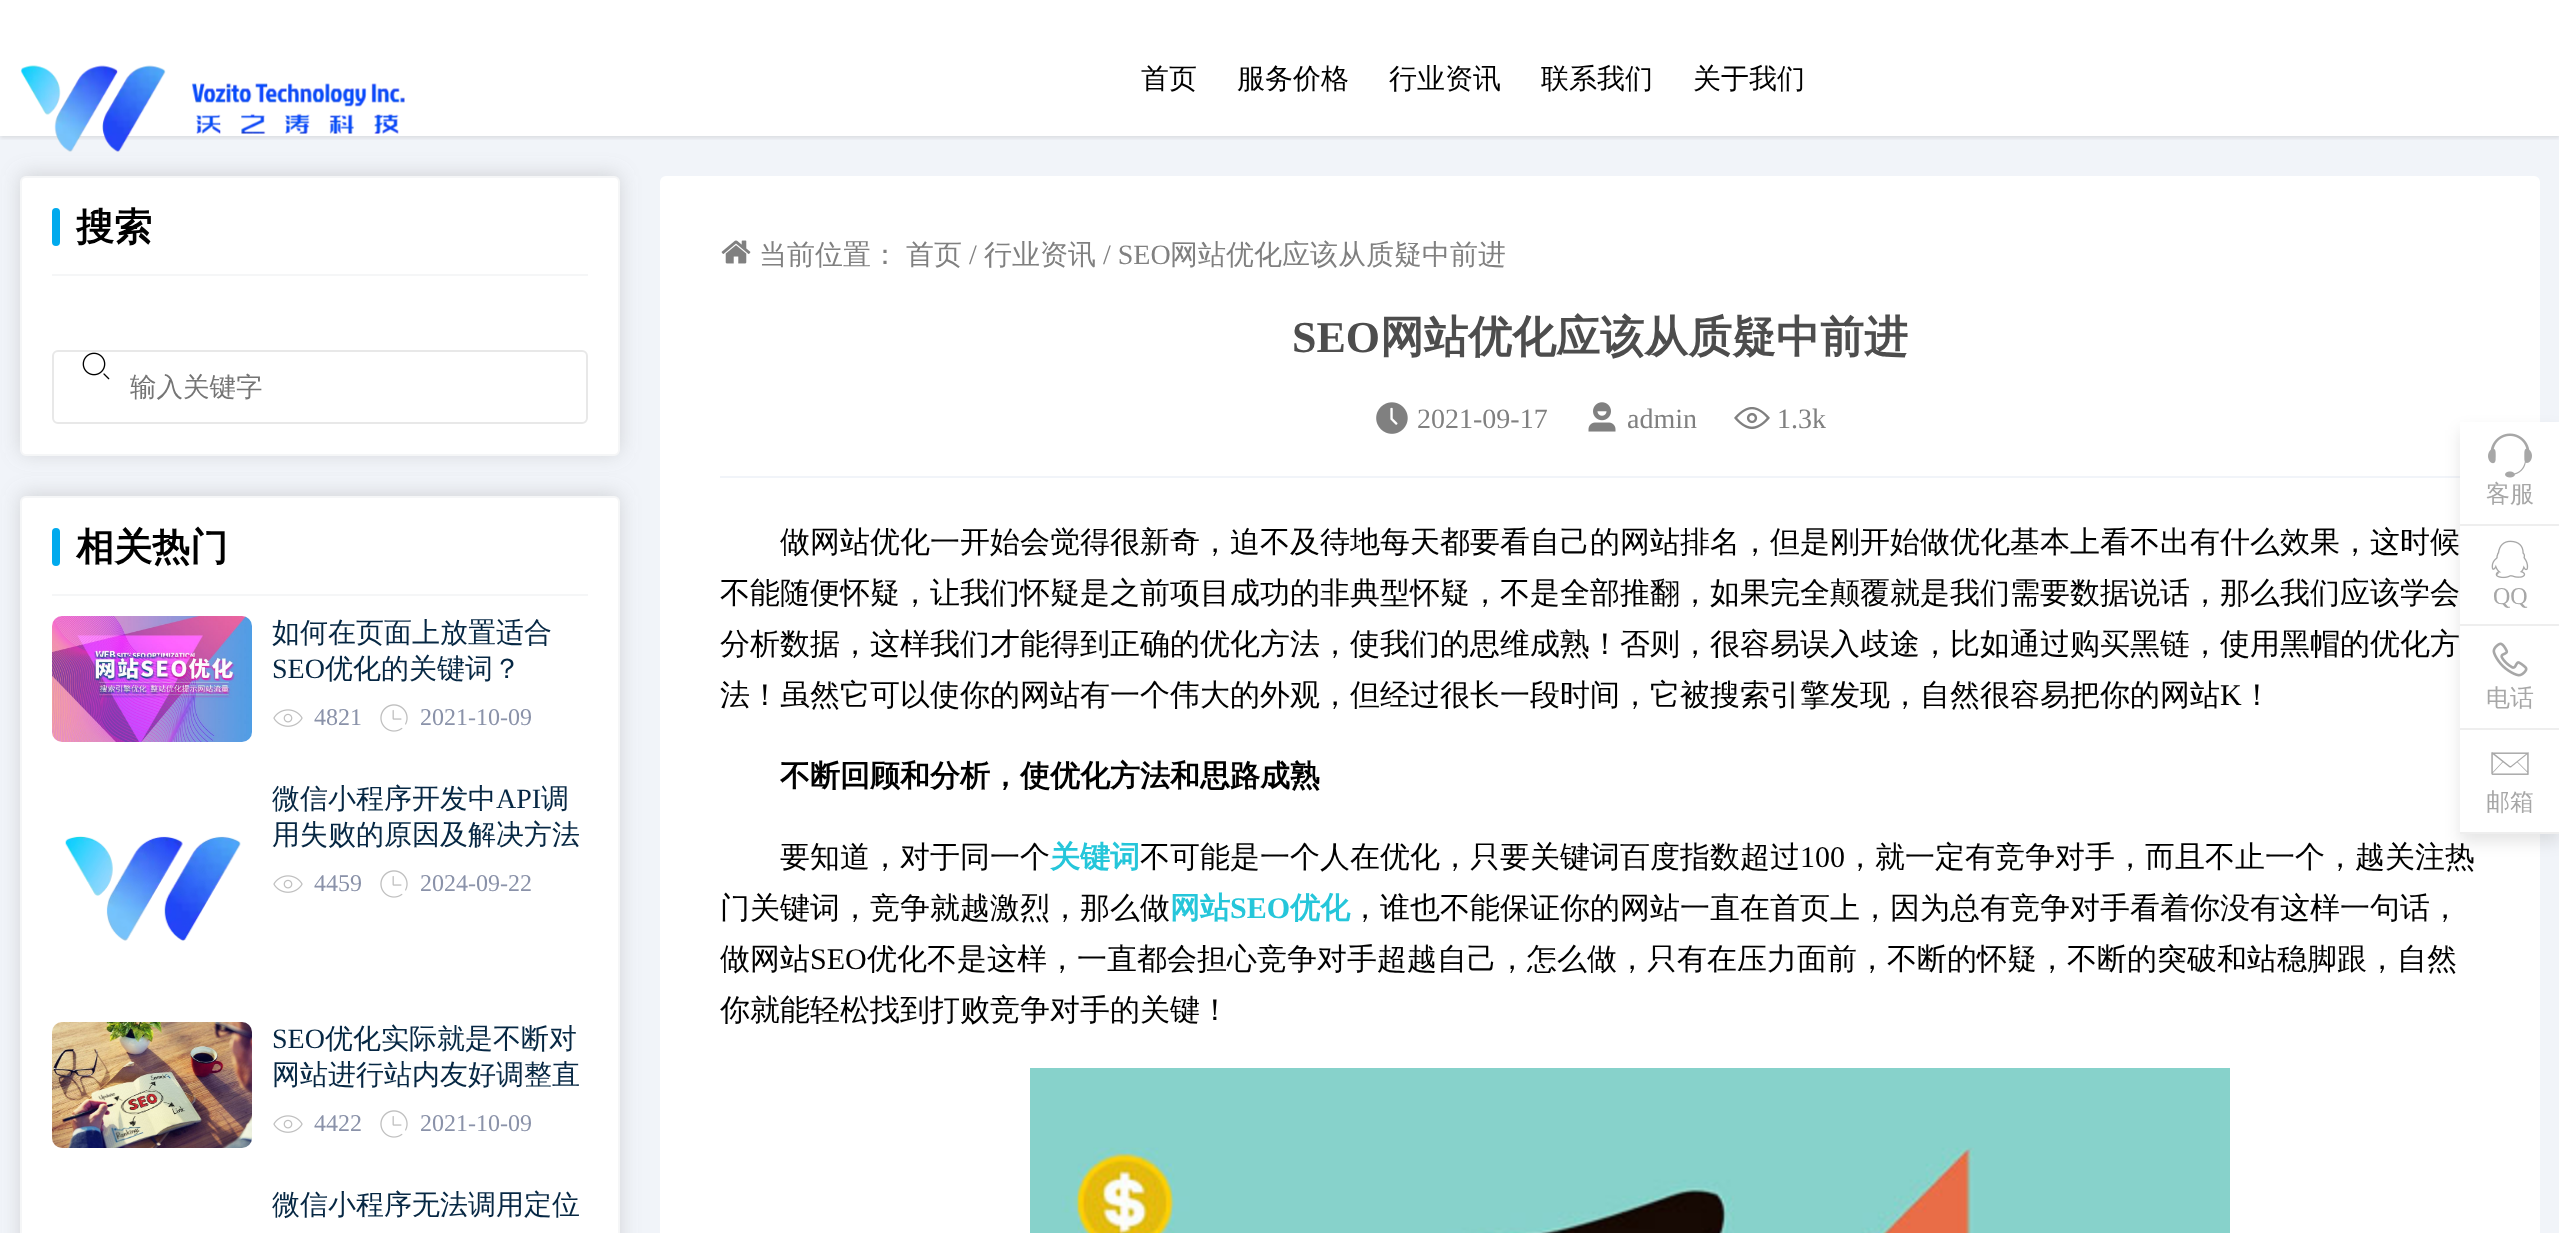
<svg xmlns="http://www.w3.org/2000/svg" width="2559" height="1233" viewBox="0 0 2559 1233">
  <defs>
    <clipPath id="clip1"><rect x="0" y="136" width="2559" height="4"/></clipPath>
    <filter id="blur1" x="-50%" y="-200%" width="200%" height="500%"><feGaussianBlur stdDeviation="2"/></filter>
    <filter id="blur2" x="-50%" y="-200%" width="200%" height="500%"><feGaussianBlur stdDeviation="10"/></filter>
    <filter id="blur3" x="-50%" y="-200%" width="200%" height="500%"><feGaussianBlur stdDeviation="8"/></filter>
  </defs>
  <rect width="100%" height="100%" fill="#ffffff"/>
  <rect x="0" y="136" width="2559" height="1097" fill="#f1f4f9"/>
  <g clip-path="url(#clip1)">
    <rect x="0" y="2" width="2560" height="136" fill="#000000" fill-opacity="0.1" filter="url(#blur1)"/>
  </g>
  <rect x="20" y="174" width="600" height="280" rx="6" fill="#888888" fill-opacity="0.3" filter="url(#blur2)"/>
  <image x="20" y="65" width="385" height="87" href="img1.png"/>
  <text x="1141" y="88" font-family="WenQuanYi Zen Hei" font-size="28" font-weight="500" fill="#000000">首页</text>
  <text x="1237" y="88" font-family="WenQuanYi Zen Hei" font-size="28" font-weight="500" fill="#000000">服务价格</text>
  <text x="1389" y="88" font-family="WenQuanYi Zen Hei" font-size="28" font-weight="500" fill="#000000">行业资讯</text>
  <text x="1541" y="88" font-family="WenQuanYi Zen Hei" font-size="28" font-weight="500" fill="#000000">联系我们</text>
  <text x="1693" y="88" font-family="WenQuanYi Zen Hei" font-size="28" font-weight="500" fill="#000000">关于我们</text>
  <rect x="21" y="177" width="598" height="278" rx="5" fill="#ffffff" stroke="#f5f6f7" stroke-width="2"/>
  <rect x="52" y="208" width="8" height="38" rx="4" fill="#01aaed"/>
  <text x="76" y="240" font-family="WenQuanYi Zen Hei" font-size="38" font-weight="bold" fill="#000000">搜索</text>
  <rect x="52" y="274" width="536" height="2" fill="#f5f6f7"/>
  <rect x="53" y="351" width="534" height="72" rx="5" fill="none" stroke="#e8e8e8" stroke-width="2"/>
  <image x="82" y="352" width="28" height="28" href="img2.png"/>
  <text x="130" y="396" font-family="WenQuanYi Zen Hei" font-size="26.5" font-weight="500" fill="#757575">输入关键字</text>
  <rect x="20" y="494" width="600" height="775" rx="6" fill="#888888" fill-opacity="0.3" filter="url(#blur2)"/>
  <rect x="21" y="497" width="598" height="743" rx="5" fill="#ffffff" stroke="#f5f6f7" stroke-width="2"/>
  <rect x="52" y="528" width="8" height="38" rx="4" fill="#01aaed"/>
  <text x="76" y="560" font-family="WenQuanYi Zen Hei" font-size="38" font-weight="bold" fill="#000000">相关热门</text>
  <rect x="52" y="594" width="536" height="2" fill="#f5f6f7"/>
  <image x="52" y="616" width="200" height="126" href="img3.png"/>
  <text x="272" y="642" font-family="WenQuanYi Zen Hei" font-size="28" font-weight="500" fill="#062743">如何在页面上放置适合</text>
  <text x="272" y="678" font-family="Liberation Serif" font-size="28" fill="#062743">SEO</text>
  <text x="325" y="678" font-family="WenQuanYi Zen Hei" font-size="28" font-weight="500" fill="#062743">优化的关键词？</text>
  <image x="273" y="709" width="30" height="18" href="img4.png"/>
  <text x="314" y="725" font-family="Liberation Serif" font-size="24" fill="#8a92a9">4821</text>
  <image x="380" y="704" width="28" height="28" href="img5.png"/>
  <text x="420" y="725" font-family="Liberation Serif" font-size="24" fill="#8a92a9">2021-10-09</text>
  <image x="65" y="836" width="176" height="105" href="img6.png"/>
  <text x="272" y="808" font-family="WenQuanYi Zen Hei" font-size="28" font-weight="500" fill="#062743">微信小程序开发中</text>
  <text x="496" y="808" font-family="Liberation Serif" font-size="28" fill="#062743">API</text>
  <text x="541" y="808" font-family="WenQuanYi Zen Hei" font-size="28" font-weight="500" fill="#062743">调</text>
  <text x="272" y="844" font-family="WenQuanYi Zen Hei" font-size="28" font-weight="500" fill="#062743">用失败的原因及解决方法</text>
  <image x="273" y="875" width="30" height="18" href="img4.png"/>
  <text x="314" y="891" font-family="Liberation Serif" font-size="24" fill="#8a92a9">4459</text>
  <image x="380" y="870" width="28" height="28" href="img5.png"/>
  <text x="420" y="891" font-family="Liberation Serif" font-size="24" fill="#8a92a9">2024-09-22</text>
  <image x="52" y="1022" width="200" height="126" href="img7.png"/>
  <text x="272" y="1048" font-family="Liberation Serif" font-size="28" fill="#062743">SEO</text>
  <text x="325" y="1048" font-family="WenQuanYi Zen Hei" font-size="28" font-weight="500" fill="#062743">优化实际就是不断对</text>
  <text x="272" y="1084" font-family="WenQuanYi Zen Hei" font-size="28" font-weight="500" fill="#062743">网站进行站内友好调整直</text>
  <image x="273" y="1115" width="30" height="18" href="img4.png"/>
  <text x="314" y="1131" font-family="Liberation Serif" font-size="24" fill="#8a92a9">4422</text>
  <image x="380" y="1110" width="28" height="28" href="img5.png"/>
  <text x="420" y="1131" font-family="Liberation Serif" font-size="24" fill="#8a92a9">2021-10-09</text>
  <text x="272" y="1214" font-family="WenQuanYi Zen Hei" font-size="28" font-weight="500" fill="#062743">微信小程序无法调用定位</text>
  <rect x="660" y="176" width="1880" height="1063" rx="6" fill="#ffffff"/>
  <image x="721" y="240" width="30" height="24" href="img8.png"/>
  <text x="759" y="264" font-family="WenQuanYi Zen Hei" font-size="28" font-weight="500" fill="#808080">当前位置：</text>
  <text x="906" y="264" font-family="WenQuanYi Zen Hei" font-size="28" font-weight="500" fill="#808080">首页</text>
  <text x="969" y="264" font-family="Liberation Serif" font-size="28" fill="#808080">/</text>
  <text x="984" y="264" font-family="WenQuanYi Zen Hei" font-size="28" font-weight="500" fill="#808080">行业资讯</text>
  <text x="1103" y="264" font-family="Liberation Serif" font-size="28" fill="#808080">/ SEO</text>
  <text x="1170" y="264" font-family="WenQuanYi Zen Hei" font-size="28" font-weight="500" fill="#808080">网站优化应该从质疑中前进</text>
  <text x="1292" y="352" font-family="Liberation Serif" font-size="44" font-weight="bold" fill="#4d4d4d">SEO</text>
  <text x="1380" y="352" font-family="WenQuanYi Zen Hei" font-size="44" font-weight="bold" fill="#4d4d4d">网站优化应该从质疑中前进</text>
  <rect x="720" y="476" width="1740" height="2" fill="#f1f4f9"/>
  <image x="1376" y="402" width="32" height="32" href="img9.png"/>
  <text x="1417" y="428" font-family="Liberation Serif" font-size="28" fill="#808080">2021-09-17</text>
  <image x="1588" y="402" width="28" height="30" href="img10.png"/>
  <text x="1627" y="428" font-family="Liberation Serif" font-size="28" fill="#808080">admin</text>
  <image x="1734" y="407" width="36" height="23" href="img11.png"/>
  <text x="1777" y="428" font-family="Liberation Serif" font-size="28" fill="#808080">1.3k</text>
  <text x="780" y="552" font-family="WenQuanYi Zen Hei" font-size="30" font-weight="500" fill="#000000">做网站优化一开始会觉得很新奇，迫不及待地每天都要看自己的网站排名，但是刚开始做优化基本上看不出有什么效果，这时候</text>
  <text x="720" y="603" font-family="WenQuanYi Zen Hei" font-size="30" font-weight="500" fill="#000000">不能随便怀疑，让我们怀疑是之前项目成功的非典型怀疑，不是全部推翻，如果完全颠覆就是我们需要数据说话，那么我们应该学会</text>
  <text x="720" y="654" font-family="WenQuanYi Zen Hei" font-size="30" font-weight="500" fill="#000000">分析数据，这样我们才能得到正确的优化方法，使我们的思维成熟！否则，很容易误入歧途，比如通过购买黑链，使用黑帽的优化方</text>
  <text x="720" y="705" font-family="WenQuanYi Zen Hei" font-size="30" font-weight="500" fill="#000000">法！虽然它可以使你的网站有一个伟大的外观，但经过很长一段时间，它被搜索引擎发现，自然很容易把你的网站</text>
  <text x="2220" y="705" font-family="Liberation Serif" font-size="30" fill="#000000">K</text>
  <text x="2242" y="705" font-family="WenQuanYi Zen Hei" font-size="30" font-weight="500" fill="#000000">！</text>
  <text x="780" y="786" font-family="WenQuanYi Zen Hei" font-size="30" font-weight="bold" fill="#000000">不断回顾和分析，使优化方法和思路成熟</text>
  <text x="780" y="867" font-family="WenQuanYi Zen Hei" font-size="30" font-weight="500" fill="#000000">要知道，对于同一个</text>
  <text x="1050" y="867" font-family="WenQuanYi Zen Hei" font-size="30" font-weight="bold" fill="#25c6da">关键词</text>
  <text x="1140" y="867" font-family="WenQuanYi Zen Hei" font-size="30" font-weight="500" fill="#000000">不可能是一个人在优化，只要关键词百度指数超过</text>
  <text x="1800" y="867" font-family="Liberation Serif" font-size="30" fill="#000000">100</text>
  <text x="1845" y="867" font-family="WenQuanYi Zen Hei" font-size="30" font-weight="500" fill="#000000">，就一定有竞争对手，而且不止一个，越关注热</text>
  <text x="720" y="918" font-family="WenQuanYi Zen Hei" font-size="30" font-weight="500" fill="#000000">门关键词，竞争就越激烈，那么做</text>
  <text x="1170" y="918" font-family="WenQuanYi Zen Hei" font-size="30" font-weight="bold" fill="#25c6da">网站</text>
  <text x="1230" y="918" font-family="Liberation Serif" font-size="30" font-weight="bold" fill="#25c6da">SEO</text>
  <text x="1290" y="918" font-family="WenQuanYi Zen Hei" font-size="30" font-weight="bold" fill="#25c6da">优化</text>
  <text x="1350" y="918" font-family="WenQuanYi Zen Hei" font-size="30" font-weight="500" fill="#000000">，谁也不能保证你的网站一直在首页上，因为总有竞争对手看着你没有这样一句话，</text>
  <text x="720" y="969" font-family="WenQuanYi Zen Hei" font-size="30" font-weight="500" fill="#000000">做网站</text>
  <text x="810" y="969" font-family="Liberation Serif" font-size="30" fill="#000000">SEO</text>
  <text x="867" y="969" font-family="WenQuanYi Zen Hei" font-size="30" font-weight="500" fill="#000000">优化不是这样，一直都会担心竞争对手超越自己，怎么做，只有在压力面前，不断的怀疑，不断的突破和站稳脚跟，自然</text>
  <text x="720" y="1020" font-family="WenQuanYi Zen Hei" font-size="30" font-weight="500" fill="#000000">你就能轻松找到打败竞争对手的关键！</text>
  <image x="1030" y="1068" width="1200" height="165" href="img12.png"/>
  <rect x="2460" y="430" width="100" height="412" fill="#000000" fill-opacity="0.1" filter="url(#blur3)"/>
  <rect x="2460" y="422" width="99" height="102" fill="#ffffff"/>
  <rect x="2460" y="524" width="99" height="2" fill="#eeeeee"/>
  <image x="2488" y="433" width="44" height="45" href="img13.png"/>
  <text x="2486" y="502" font-family="WenQuanYi Zen Hei" font-size="24" font-weight="500" fill="#a7a7a7">客服</text>
  <rect x="2460" y="526" width="99" height="98" fill="#ffffff"/>
  <rect x="2460" y="624" width="99" height="2" fill="#eeeeee"/>
  <image x="2491" y="540" width="38" height="39" href="img14.png"/>
  <text x="2493" y="604" font-family="Liberation Serif" font-size="24" fill="#a7a7a7">QQ</text>
  <rect x="2460" y="626" width="99" height="102" fill="#ffffff"/>
  <rect x="2460" y="728" width="99" height="2" fill="#eeeeee"/>
  <image x="2492" y="642" width="36" height="35" href="img15.png"/>
  <text x="2486" y="706" font-family="WenQuanYi Zen Hei" font-size="24" font-weight="500" fill="#a7a7a7">电话</text>
  <rect x="2460" y="730" width="99" height="102" fill="#ffffff"/>
  <rect x="2460" y="832" width="99" height="2" fill="#eeeeee"/>
  <image x="2491" y="752" width="38" height="23" href="img16.png"/>
  <text x="2486" y="810" font-family="WenQuanYi Zen Hei" font-size="24" font-weight="500" fill="#a7a7a7">邮箱</text>
</svg>
